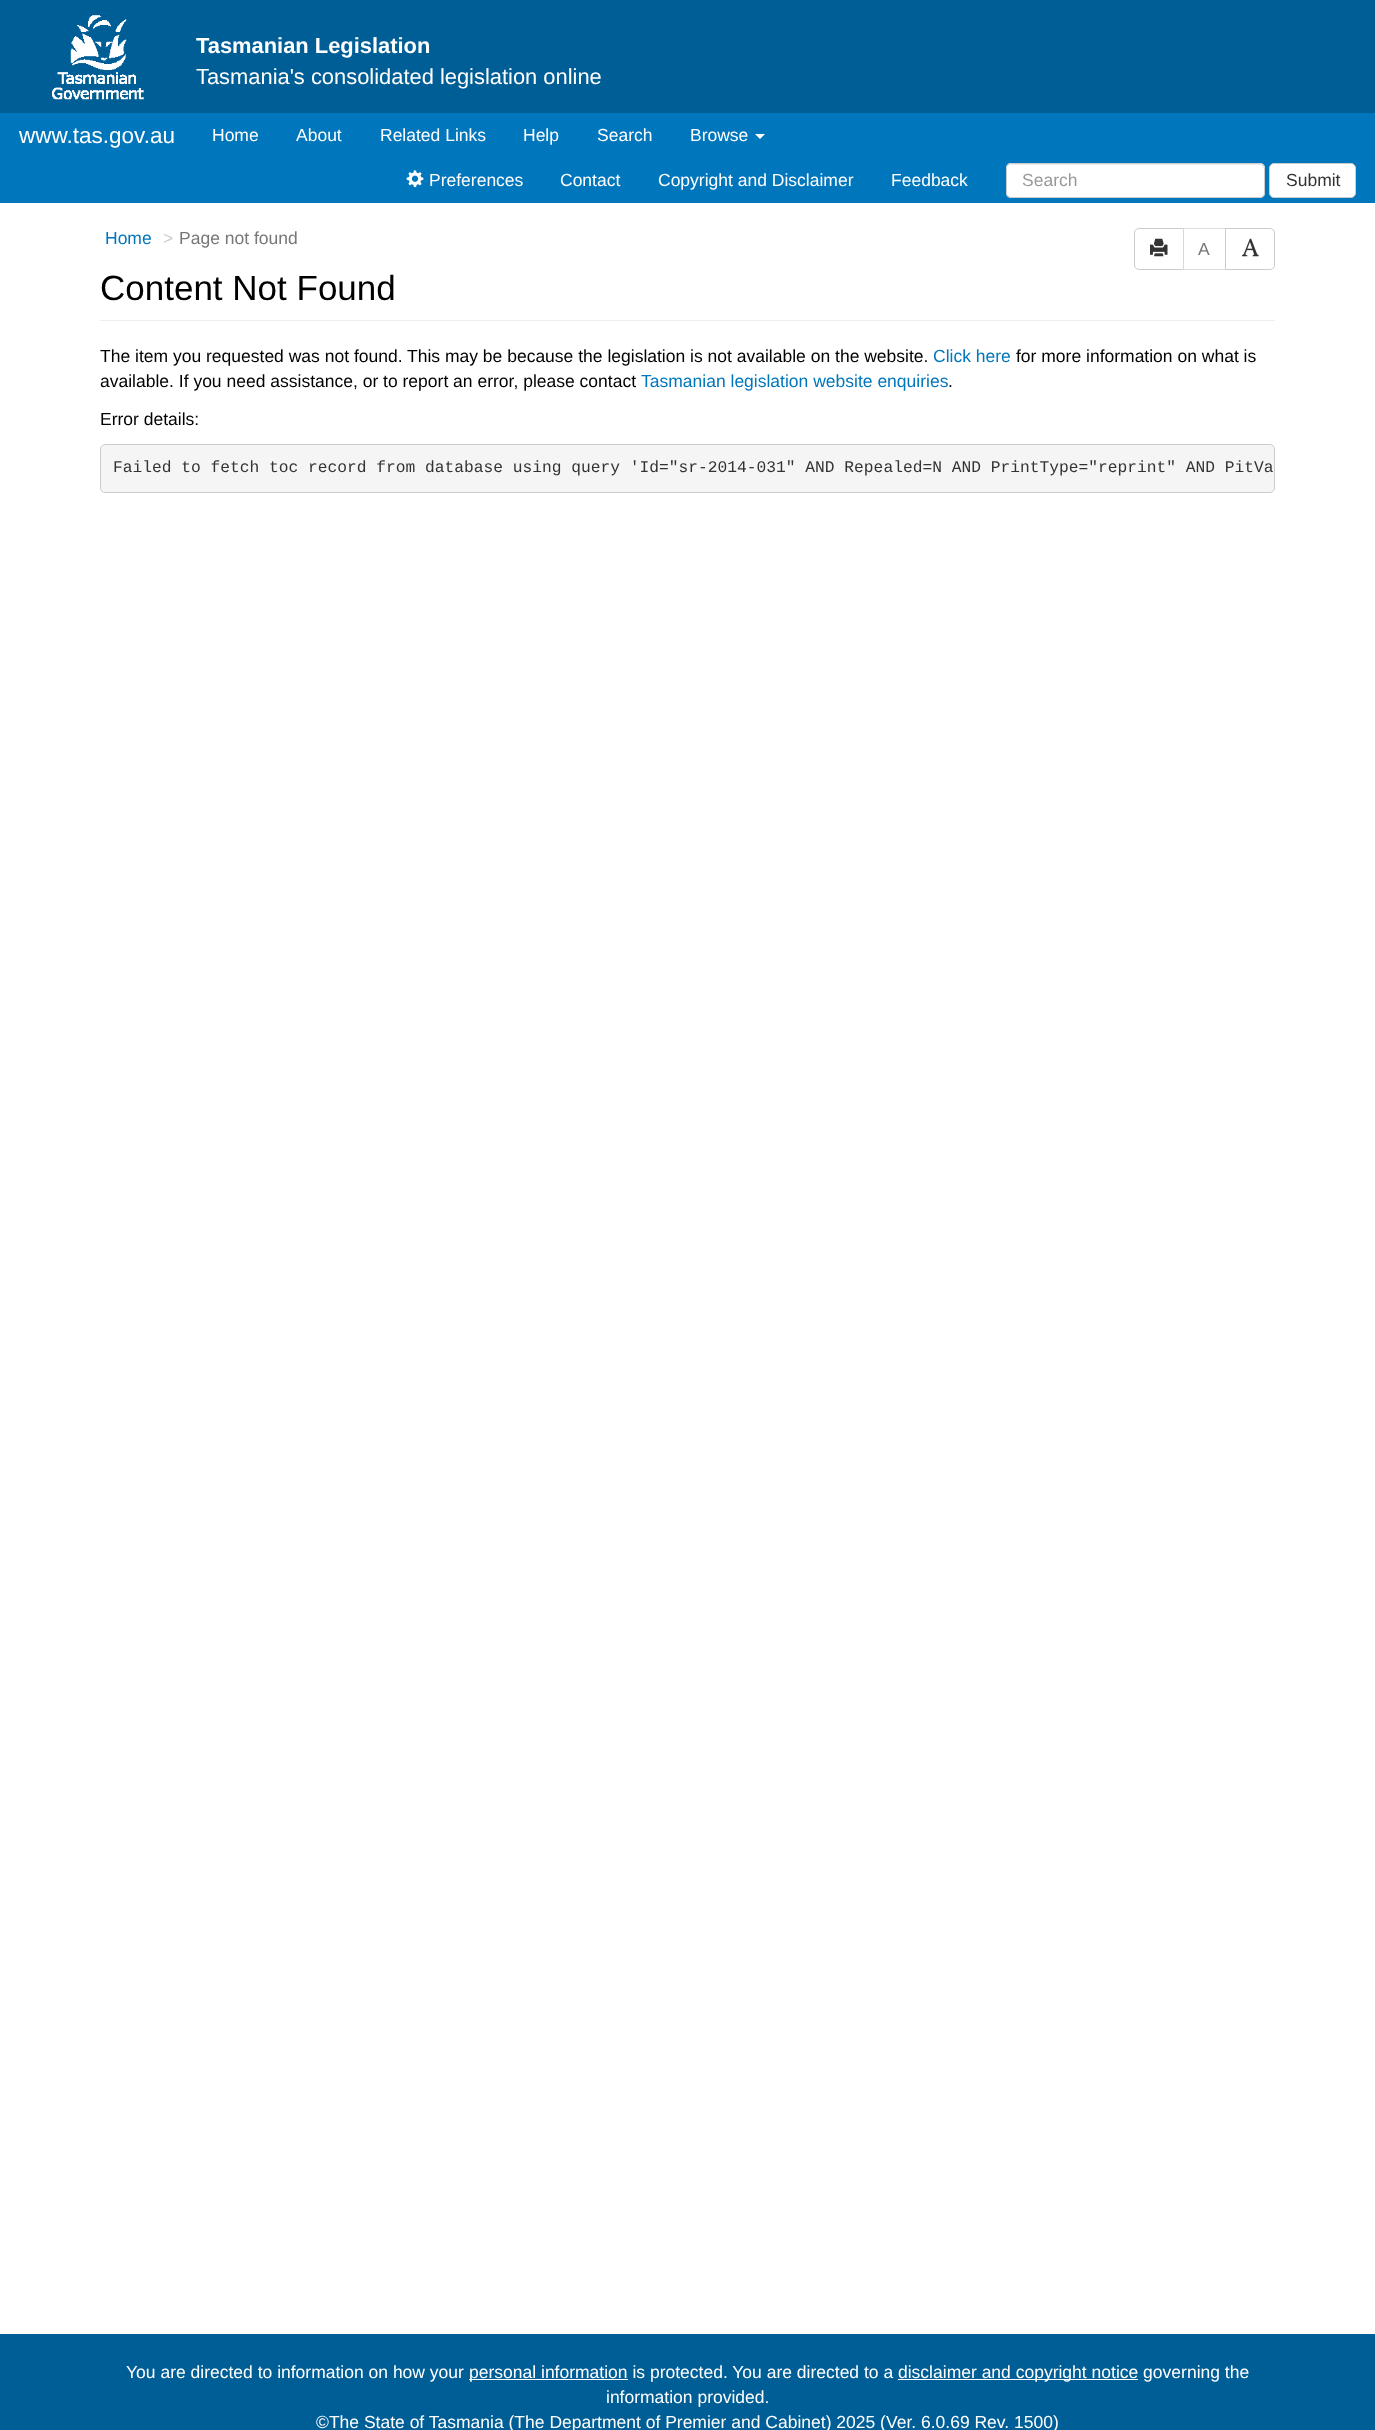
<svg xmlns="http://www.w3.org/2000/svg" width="1375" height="2430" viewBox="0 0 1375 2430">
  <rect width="100%" height="100%" fill="#ffffff"/>
  <rect x="0" y="0" width="1375" height="113" fill="#005e97"/>
  <image x="52" y="15" width="92" height="85" href="img1.png"/>
  <text x="196" y="53" font-family="Liberation Sans" font-size="21.9" font-weight="bold" fill="#ffffff">Tasmanian Legislation</text>
  <text x="196" y="84" font-family="Liberation Sans" font-size="21.9" fill="#ffffff">Tasmania's consolidated legislation online</text>
  <rect x="0" y="113" width="1375" height="90" fill="#0076bd"/>
  <text x="19" y="143" font-family="Liberation Sans" font-size="22.5" fill="#ffffff">www.tas.gov.au</text>
  <text x="212" y="141" font-family="Liberation Sans" font-size="17.5" fill="#ffffff">Home</text>
  <text x="296" y="141" font-family="Liberation Sans" font-size="17.5" fill="#ffffff">About</text>
  <text x="380" y="141" font-family="Liberation Sans" font-size="17.5" fill="#ffffff">Related Links</text>
  <text x="523" y="141" font-family="Liberation Sans" font-size="17.5" fill="#ffffff">Help</text>
  <text x="597" y="141" font-family="Liberation Sans" font-size="17.5" fill="#ffffff">Search</text>
  <text x="690" y="141" font-family="Liberation Sans" font-size="17.5" fill="#ffffff">Browse</text>
  <path d="M755 134H765L760 139Z" fill="#ffffff"/>
  <image x="406" y="170" width="18" height="18" href="img2.png"/>
  <text x="429" y="186" font-family="Liberation Sans" font-size="17.5" fill="#ffffff">Preferences</text>
  <text x="560" y="186" font-family="Liberation Sans" font-size="17.5" fill="#ffffff">Contact</text>
  <text x="658" y="186" font-family="Liberation Sans" font-size="17.5" fill="#ffffff">Copyright and Disclaimer</text>
  <text x="891" y="186" font-family="Liberation Sans" font-size="17.5" fill="#ffffff">Feedback</text>
  <rect x="1006" y="163" width="259" height="35" rx="5" fill="#ffffff"/>
  <path d="M1011 165H1261L1263 167L1264 169V168C1264 166 1262 164 1260 164H1012C1010 164 1008 166 1008 168V169C1008 167 1009 165 1011 165Z" fill="#ececec"/>
  <rect x="1006.5" y="163.5" width="258" height="34" rx="4.5" fill="none" stroke="#cccccc"/>
  <text x="1022" y="186" font-family="Liberation Sans" font-size="17.5" fill="#999999">Search</text>
  <rect x="1269.5" y="163.5" width="86" height="34" rx="4.5" fill="#ffffff" stroke="#cccccc"/>
  <text x="1286" y="186" font-family="Liberation Sans" font-size="17.5" fill="#333333">Submit</text>
  <text x="105" y="244" font-family="Liberation Sans" font-size="17.5" fill="#0076bd">Home</text>
  <text x="163" y="244" font-family="Liberation Sans" font-size="17.5" fill="#cccccc">&gt;</text>
  <text x="179" y="244" font-family="Liberation Sans" font-size="17.5" fill="#777777">Page not found</text>
  <path d="M1139 228.5H1183.5V269.5H1139C1136.5 269.5 1134.5 267.5 1134.5 265V233C1134.5 230.5 1136.5 228.5 1139 228.5Z" fill="none" stroke="#cccccc"/>
  <image x="1150" y="238" width="18" height="19" href="img3.png"/>
  <rect x="1183" y="228" width="1" height="42" fill="#ffffff" fill-opacity="0.65"/>
  <rect x="1183.5" y="228.5" width="42" height="41" fill="none" stroke="#cccccc" stroke-opacity="0.65"/>
  <text x="1198" y="255" font-family="Liberation Sans" font-size="17.5" fill="#777777">A</text>
  <path d="M1225.5 228.5H1270C1272.5 228.5 1274.5 230.5 1274.5 233V265C1274.5 267.5 1272.5 269.5 1270 269.5H1225.5Z" fill="#ffffff" stroke="#cccccc"/>
  <image x="1242" y="238" width="17" height="19" href="img4.png"/>
  <rect x="100" y="320" width="1175" height="1" fill="#eeeeee"/>
  <text x="100" y="300" font-family="Liberation Sans" font-size="35" fill="#000000">Content Not Found</text>
  <text x="100" y="362" font-family="Liberation Sans" font-size="17.5" fill="#000000">The item you requested was not found.</text>
  <text x="407" y="362" font-family="Liberation Sans" font-size="17.5" fill="#000000">This may be because the legislation is not available on the website.</text>
  <text x="933" y="362" font-family="Liberation Sans" font-size="17.5" fill="#0076bd">Click here</text>
  <text x="1016" y="362" font-family="Liberation Sans" font-size="17.5" fill="#000000">for more information on what is</text>
  <text x="100" y="387" font-family="Liberation Sans" font-size="17.5" fill="#000000">available. If you need assistance, or to report an error, please contact</text>
  <text x="641" y="387" font-family="Liberation Sans" font-size="17.5" fill="#0076bd">Tasmanian legislation website enquiries</text>
  <text x="948" y="387" font-family="Liberation Sans" font-size="17.5" fill="#000000">.</text>
  <text x="100" y="425" font-family="Liberation Sans" font-size="17.5" fill="#000000">Error details:</text>
  <rect x="100.5" y="444.5" width="1174" height="48" rx="4.5" fill="#f5f5f5" stroke="#cccccc"/>
  <text x="113" y="472" font-family="Liberation Mono" font-size="16.25" fill="#333333">Failed to fetch toc record from database using query 'Id="sr-2014-031" AND Repealed=N AND PrintType="reprint" AND PitVa</text>
  <rect x="0" y="2334" width="1375" height="96" fill="#005e97"/>
  <text x="126" y="2378" font-family="Liberation Sans" font-size="17.5" fill="#ffffff">You are directed to information on how your</text>
  <rect x="469" y="2379" width="159" height="1" fill="#ffffff"/>
  <text x="469" y="2378" font-family="Liberation Sans" font-size="17.5" fill="#ffffff">personal information is protected. You are directed to a</text>
  <rect x="898" y="2379" width="240" height="1" fill="#ffffff"/>
  <text x="898" y="2378" font-family="Liberation Sans" font-size="17.5" fill="#ffffff">disclaimer and copyright notice governing the</text>
  <text x="606" y="2403" font-family="Liberation Sans" font-size="17.5" fill="#ffffff">information provided.</text>
  <text x="316" y="2428" font-family="Liberation Sans" font-size="17.5" fill="#ffffff">©The State of Tasmania (The Department of Premier and Cabinet) 2025 (Ver. 6.0.69 Rev. 1500)</text>
</svg>
